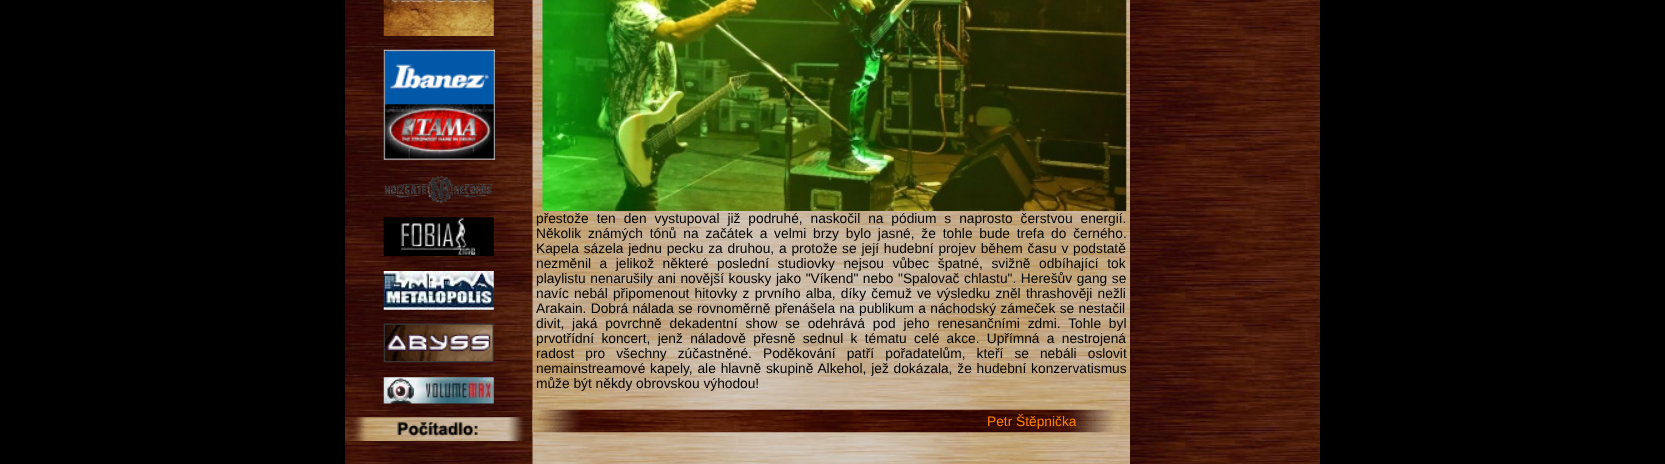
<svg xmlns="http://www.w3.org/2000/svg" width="1665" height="464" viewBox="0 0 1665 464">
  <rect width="100%" height="100%" fill="#000000"/>
  <image x="532" y="0" width="788" height="464" href="img1.png"/>
  <image x="345" y="0" width="188" height="464" href="img2.png"/>
  <image x="345" y="0" width="188" height="418" href="img3.png"/>
  <image x="383" y="0" width="111" height="36" href="img4.png"/>
  <image x="383" y="49" width="112" height="111" href="img5.png"/>
  <image x="384" y="175" width="109" height="29" href="img6.png"/>
  <image x="383" y="217" width="111" height="39" href="img7.png"/>
  <image x="383" y="271" width="111" height="39" href="img8.png"/>
  <image x="383" y="323" width="111" height="40" href="img9.png"/>
  <image x="383" y="377" width="111" height="27" href="img10.png"/>
  <image x="345" y="417" width="188" height="24" href="img11.png"/>
  <image x="532" y="0" width="598" height="464" href="img12.png"/>
  <image x="542" y="0" width="585" height="211" href="img13.png"/>
  <text x="536" y="223" word-spacing="4.1" font-family="Liberation Sans" font-size="13.75" fill="#000000">přestože ten den vystupoval již podruhé, naskočil na pódium s naprosto čerstvou energií.</text>
  <text x="536" y="238" word-spacing="3" font-family="Liberation Sans" font-size="13.75" fill="#000000">Několik známých tónů na začátek a velmi brzy bylo jasné, že tohle bude trefa do černého.</text>
  <text x="536" y="253" word-spacing="1" font-family="Liberation Sans" font-size="13.75" fill="#000000">Kapela sázela jednu pecku za druhou, a protože se její hudební projev během času v podstatě</text>
  <text x="536" y="268" word-spacing="4.75" font-family="Liberation Sans" font-size="13.75" fill="#000000">nezměnil a jelikož některé poslední studiovky nejsou vůbec špatné, svižně odbíhající tok</text>
  <text x="536" y="283" word-spacing="0.75" font-family="Liberation Sans" font-size="13.75" fill="#000000">playlistu nenarušily ani novější kousky jako "Víkend" nebo "Spalovač chlastu". Herešův gang se</text>
  <text x="536" y="298" word-spacing="1.4" font-family="Liberation Sans" font-size="13.75" fill="#000000">navíc nebál připomenout hitovky z prvního alba, díky čemuž ve výsledku zněl thrashověji nežli</text>
  <text x="536" y="313" word-spacing="0.5" font-family="Liberation Sans" font-size="13.75" fill="#000000">Arakain. Dobrá nálada se rovnoměrně přenášela na publikum a náchodský zámeček se nestačil</text>
  <text x="536" y="328" word-spacing="4" font-family="Liberation Sans" font-size="13.75" fill="#000000">divit, jaká povrchně dekadentní show se odehrává pod jeho renesančními zdmi. Tohle byl</text>
  <text x="536" y="343" word-spacing="3.5" font-family="Liberation Sans" font-size="13.75" fill="#000000">prvotřídní koncert, jenž náladově přesně sednul k tématu celé akce. Upřímná a nestrojená</text>
  <text x="536" y="358" word-spacing="7.25" font-family="Liberation Sans" font-size="13.75" fill="#000000">radost pro všechny zúčastněné. Poděkování patří pořadatelům, kteří se nebáli oslovit</text>
  <text x="536" y="373" word-spacing="1" font-family="Liberation Sans" font-size="13.75" fill="#000000">nemainstreamové kapely, ale hlavně skupině Alkehol, jež dokázala, že hudební konzervatismus</text>
  <text x="536" y="388" font-family="Liberation Sans" font-size="13.75" fill="#000000">může být někdy obrovskou výhodou!</text>
  <image x="532" y="409" width="598" height="24" href="img14.png"/>
  <text x="987" y="426" font-family="Liberation Sans" font-size="13.75" fill="#ff8000">Petr Štěpnička</text>
</svg>
